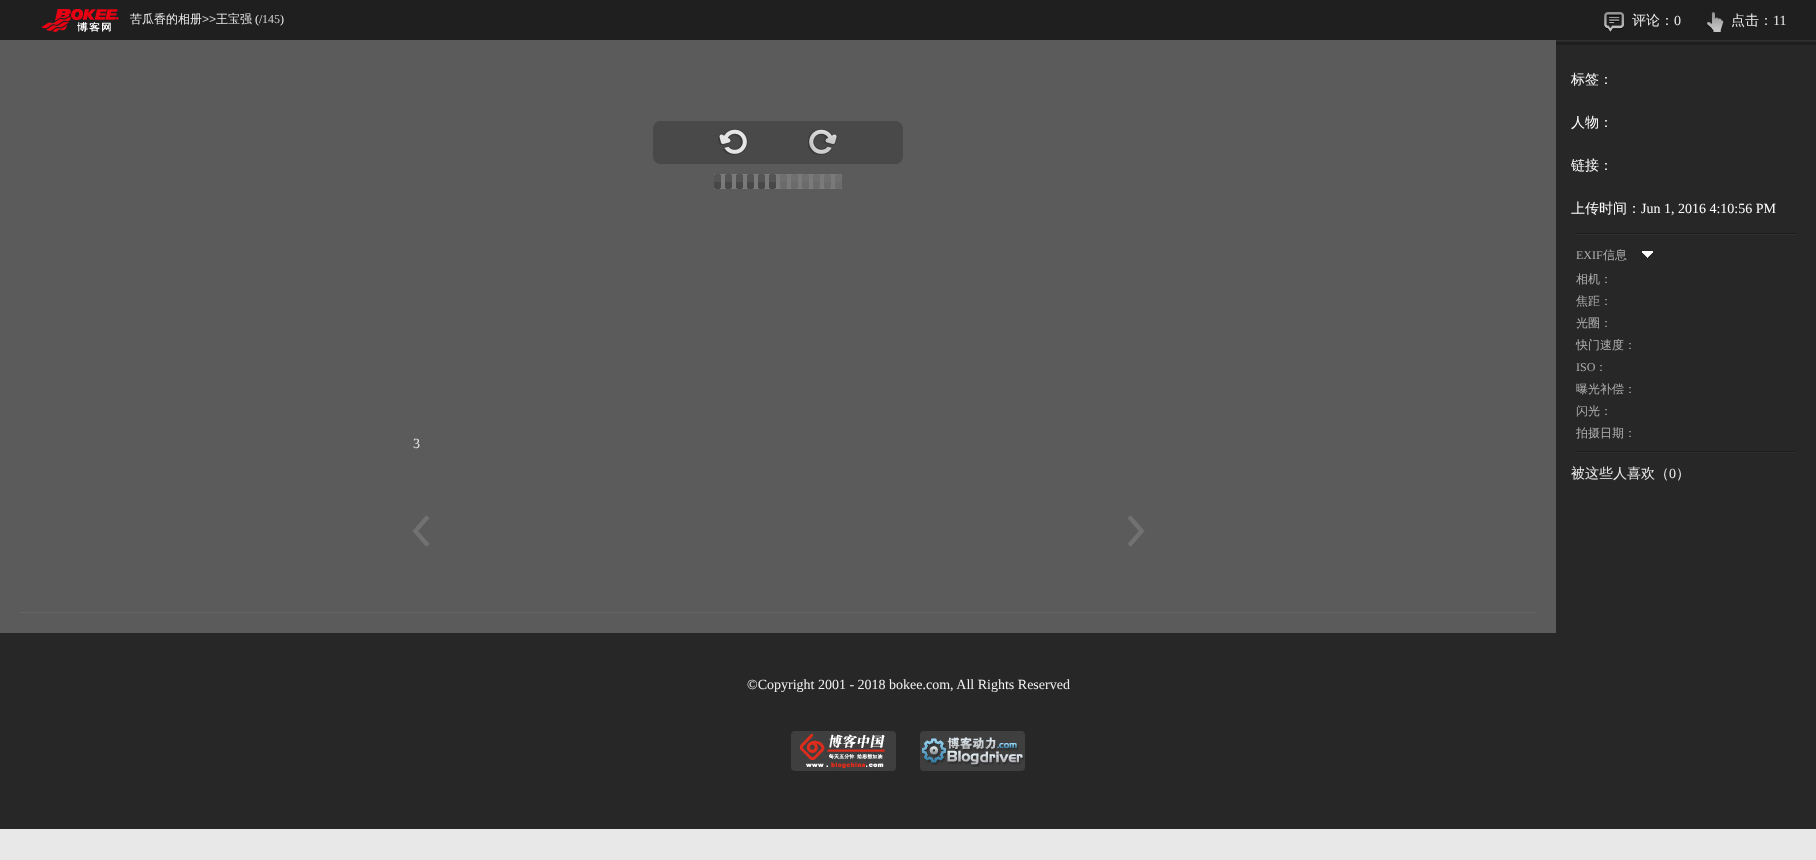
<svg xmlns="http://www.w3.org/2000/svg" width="1816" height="860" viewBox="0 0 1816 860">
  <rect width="100%" height="100%" fill="#e8e8e8"/>
  <rect x="0" y="0" width="1816" height="40" fill="#1f1f1f"/>
  <image x="41" y="9" width="78" height="23" href="img1.png"/>
  <text x="130" y="23" font-family="WenQuanYi Zen Hei" font-size="12" font-weight="500" fill="#ebebeb">苦瓜香的相册</text>
  <text x="202" y="23" font-family="Liberation Sans" font-size="12" fill="#d0d0d0">&gt;&gt;</text>
  <text x="216" y="23" font-family="WenQuanYi Zen Hei" font-size="12" font-weight="500" fill="#ebebeb">王宝强</text>
  <text x="255" y="23" font-family="Liberation Serif" font-size="12" fill="#ebebeb">(/</text>
  <text x="262" y="23" font-family="Liberation Serif" font-size="12" fill="#d0d0d0">145</text>
  <text x="280" y="23" font-family="Liberation Serif" font-size="12" fill="#ebebeb">)</text>
  <image x="1604" y="12" width="20" height="20" href="img2.png"/>
  <text x="1632" y="25" font-family="WenQuanYi Zen Hei" font-size="14" font-weight="500" fill="#ebebeb">评论：</text>
  <text x="1674" y="25" font-family="Liberation Serif" font-size="14" fill="#ebebeb">0</text>
  <image x="1707" y="12" width="17" height="20" href="img3.png"/>
  <text x="1731" y="25" font-family="WenQuanYi Zen Hei" font-size="14" font-weight="500" fill="#ebebeb">点击：</text>
  <text x="1773" y="25" font-family="Liberation Serif" font-size="14" fill="#ebebeb">11</text>
  <rect x="1556" y="41" width="260" height="592" fill="#272727"/>
  <rect x="0" y="40" width="1556" height="593" fill="#5b5b5b"/>
  <rect x="20" y="612" width="1516" height="1" fill="#656565"/>
  <image x="653" y="121" width="250" height="43" href="img4.png"/>
  <image x="718" y="129" width="30" height="26" href="img5.png"/>
  <image x="808" y="129" width="30" height="26" href="img6.png"/>
  <image x="714" y="174" width="128" height="15" href="img7.png"/>
  <text x="413" y="448" font-family="Liberation Serif" font-size="14" fill="#ebebeb">3</text>
  <image x="412" y="515" width="18" height="32" href="img8.png"/>
  <image x="1127" y="515" width="18" height="32" href="img9.png"/>
  <rect x="1556" y="42" width="260" height="3" fill="#1e1e1e"/>
  <rect x="1556" y="40" width="260" height="1" fill="#303030"/>
  <text x="1571" y="84" font-family="WenQuanYi Zen Hei" font-size="14" font-weight="500" fill="#fefefe">标签：</text>
  <text x="1571" y="127" font-family="WenQuanYi Zen Hei" font-size="14" font-weight="500" fill="#fefefe">人物：</text>
  <text x="1571" y="170" font-family="WenQuanYi Zen Hei" font-size="14" font-weight="500" fill="#fefefe">链接：</text>
  <text x="1571" y="213" font-family="WenQuanYi Zen Hei" font-size="14" font-weight="500" fill="#fefefe">上传时间：</text>
  <text x="1641" y="213" font-family="Liberation Serif" font-size="14" fill="#fefefe">Jun 1, 2016 4:10:56 PM</text>
  <image x="1576" y="451" width="220" height="2" href="img10.png"/>
  <image x="1576" y="233" width="220" height="2" href="img10.png"/>
  <text x="1576" y="259" font-family="Liberation Serif" font-size="12" fill="#b0b0b0">EXIF</text>
  <text x="1603" y="259" font-family="WenQuanYi Zen Hei" font-size="12" font-weight="500" fill="#b0b0b0">信息</text>
  <image x="1642" y="251" width="11" height="7" href="img11.png"/>
  <text x="1576" y="283" font-family="WenQuanYi Zen Hei" font-size="12" font-weight="500" fill="#b0b0b0">相机：</text>
  <text x="1576" y="305" font-family="WenQuanYi Zen Hei" font-size="12" font-weight="500" fill="#b0b0b0">焦距：</text>
  <text x="1576" y="327" font-family="WenQuanYi Zen Hei" font-size="12" font-weight="500" fill="#b0b0b0">光圈：</text>
  <text x="1576" y="349" font-family="WenQuanYi Zen Hei" font-size="12" font-weight="500" fill="#b0b0b0">快门速度：</text>
  <text x="1576" y="371" font-family="Liberation Serif" font-size="12" fill="#b0b0b0">ISO</text>
  <text x="1595" y="371" font-family="WenQuanYi Zen Hei" font-size="12" font-weight="500" fill="#b0b0b0">：</text>
  <text x="1576" y="393" font-family="WenQuanYi Zen Hei" font-size="12" font-weight="500" fill="#b0b0b0">曝光补偿：</text>
  <text x="1576" y="415" font-family="WenQuanYi Zen Hei" font-size="12" font-weight="500" fill="#b0b0b0">闪光：</text>
  <text x="1576" y="437" font-family="WenQuanYi Zen Hei" font-size="12" font-weight="500" fill="#b0b0b0">拍摄日期：</text>
  <text x="1571" y="478" font-family="WenQuanYi Zen Hei" font-size="14" font-weight="500" fill="#ebebeb">被这些人喜欢（</text>
  <text x="1669" y="478" font-family="Liberation Serif" font-size="14" fill="#ebebeb">0</text>
  <text x="1676" y="478" font-family="WenQuanYi Zen Hei" font-size="14" font-weight="500" fill="#ebebeb">）</text>
  <rect x="0" y="633" width="1816" height="196" fill="#272727"/>
  <text x="747" y="689" font-family="Liberation Serif" font-size="14" fill="#f2f2f2">©Copyright 2001 - 2018 bokee.com, All Rights Reserved</text>
  <image x="791" y="731" width="105" height="40" href="img12.png"/>
  <image x="920" y="731" width="105" height="40" href="img13.png"/>
</svg>
